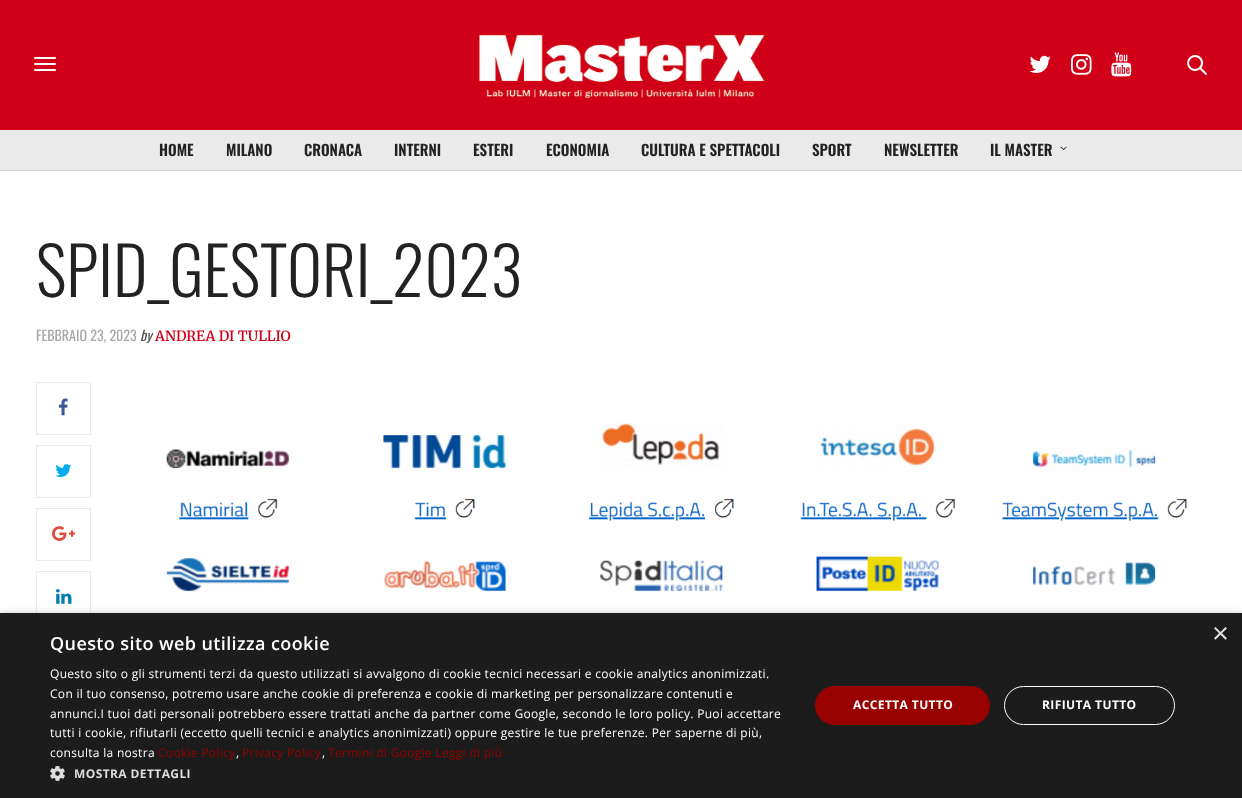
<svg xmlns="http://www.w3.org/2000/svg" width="1242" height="798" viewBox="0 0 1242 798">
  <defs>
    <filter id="blur1" x="-50%" y="-200%" width="200%" height="500%"><feGaussianBlur stdDeviation="4"/></filter>
  </defs>
  <rect width="100%" height="100%" fill="#ffffff"/>
  <rect x="0" y="0" width="1242" height="130" fill="#d10019"/>
  <rect x="34" y="57" width="22" height="2" rx="1" fill="#ffffff"/>
  <rect x="34" y="63" width="22" height="2" rx="1" fill="#ffffff"/>
  <rect x="34" y="69" width="22" height="2" rx="1" fill="#ffffff"/>
  <image x="479" y="34" width="286" height="65" href="img1.png"/>
  <image x="1029" y="55" width="22" height="18" href="img2.png"/>
  <image x="1071" y="54" width="21" height="21" href="img3.png"/>
  <image x="1111" y="52" width="21" height="25" href="img4.png"/>
  <image x="1187" y="55" width="20" height="20" href="img5.png"/>
  <rect x="0" y="130" width="1242" height="40" fill="#eaeaea"/>
  <rect x="0" y="170" width="1242" height="1" fill="#d3d3d3"/>
  <text x="159" y="156" font-family="Oswald" font-size="15" font-weight="600" fill="#222222">HOME</text>
  <text x="226" y="156" font-family="Oswald" font-size="15" font-weight="600" fill="#222222">MILANO</text>
  <text x="304" y="156" font-family="Oswald" font-size="15" font-weight="600" fill="#222222">CRONACA</text>
  <text x="394" y="156" font-family="Oswald" font-size="15" font-weight="600" fill="#222222">INTERNI</text>
  <text x="473" y="156" font-family="Oswald" font-size="15" font-weight="600" fill="#222222">ESTERI</text>
  <text x="546" y="156" font-family="Oswald" font-size="15" font-weight="600" fill="#222222">ECONOMIA</text>
  <text x="641" y="156" font-family="Oswald" font-size="15" font-weight="600" fill="#222222">CULTURA E SPETTACOLI</text>
  <text x="812" y="156" font-family="Oswald" font-size="15" font-weight="600" fill="#222222">SPORT</text>
  <text x="884" y="156" font-family="Oswald" font-size="15" font-weight="600" fill="#222222">NEWSLETTER</text>
  <text x="990" y="156" font-family="Oswald" font-size="15" font-weight="600" fill="#222222">IL MASTER</text>
  <image x="1060" y="146" width="7" height="5" href="img6.png"/>
  <text x="36" y="297" font-family="Oswald" font-size="66" font-weight="300" fill="#222222">SPID_GESTORI_2023</text>
  <text x="36" y="341" font-family="Oswald" font-size="14" fill="#a7a7a7">FEBBRAIO 23, 2023</text>
  <text x="140" y="341" font-family="Oswald" font-size="14" font-style="italic" fill="#545353">by</text>
  <text x="155" y="341" font-family="Merriweather" font-size="14" font-weight="600" fill="#d10019">ANDREA DI TULLIO</text>
  <rect x="36.5" y="382.5" width="54" height="52" fill="none" stroke="#eaeaea"/>
  <image x="58" y="398" width="10" height="18" href="img7.png"/>
  <rect x="36.5" y="445.5" width="54" height="52" fill="none" stroke="#eaeaea"/>
  <image x="55" y="464" width="17" height="13" href="img8.png"/>
  <rect x="36.5" y="508.5" width="54" height="52" fill="none" stroke="#eaeaea"/>
  <image x="52" y="526" width="24" height="15" href="img9.png"/>
  <rect x="36.5" y="571.5" width="54" height="52" fill="none" stroke="#eaeaea"/>
  <image x="56" y="589" width="16" height="15" href="img10.png"/>
  <image x="166" y="423" width="1021" height="190" href="img11.png"/>
  <rect x="1" y="615" width="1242" height="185" fill="#000000" fill-opacity="0.35" filter="url(#blur1)"/>
  <rect x="0" y="613" width="1242" height="185" fill="#1c1c1c"/>
  <text x="1212" y="643" font-family="Liberation Sans" font-size="29" fill="#dddddd">×</text>
  <text x="50" y="650" font-family="Open Sans" font-size="18" font-weight="600" letter-spacing="0.4" fill="#ffffff">Questo sito web utilizza cookie</text>
  <text x="50" y="678" font-family="Open Sans" font-size="12" letter-spacing="0.3" fill="#ffffff">Questo sito o gli strumenti terzi da questo utilizzati si avvalgono di cookie tecnici necessari e cookie analytics anonimizzati.</text>
  <text x="50" y="698" font-family="Open Sans" font-size="12" letter-spacing="0.3" fill="#ffffff">Con il tuo consenso, potremo usare anche cookie di preferenza e cookie di marketing per personalizzare contenuti e</text>
  <text x="50" y="718" font-family="Open Sans" font-size="12" letter-spacing="0.3" fill="#ffffff">annunci.I tuoi dati personali potrebbero essere trattati anche da partner come Google, secondo le loro policy. Puoi accettare</text>
  <text x="50" y="737" font-family="Open Sans" font-size="12" letter-spacing="0.3" fill="#ffffff">tutti i cookie, rifiutarli (eccetto quelli tecnici e analytics anonimizzati) oppure gestire le tue preferenze. Per saperne di più,</text>
  <text x="50" y="757" font-family="Open Sans" font-size="12" letter-spacing="0.3" fill="#ffffff">consulta la nostra</text>
  <text x="158" y="757" font-family="Open Sans" font-size="12" letter-spacing="0.3" fill="#990000">Cookie Policy</text>
  <text x="236" y="757" font-family="Open Sans" font-size="12" letter-spacing="0.3" fill="#ffffff">,</text>
  <text x="242" y="757" font-family="Open Sans" font-size="12" letter-spacing="0.3" fill="#990000">Privacy Policy</text>
  <text x="322" y="757" font-family="Open Sans" font-size="12" letter-spacing="0.3" fill="#ffffff">,</text>
  <text x="328" y="757" font-family="Open Sans" font-size="12" letter-spacing="0.3" fill="#990000">Termini di Google Leggi di più</text>
  <image x="50" y="766" width="15" height="15" href="img12.png"/>
  <text x="74" y="778" font-family="Open Sans" font-size="12" font-weight="bold" letter-spacing="0.4" fill="#dddddd">MOSTRA DETTAGLI</text>
  <rect x="815" y="686" width="175" height="39" rx="19.5" fill="#990000"/>
  <text x="853" y="709" font-family="Open Sans" font-size="12" font-weight="bold" letter-spacing="0.4" fill="#ffffff">ACCETTA TUTTO</text>
  <rect x="1004.5" y="686.5" width="170" height="38" rx="19" fill="none" stroke="#ffffff"/>
  <text x="1042" y="709" font-family="Open Sans" font-size="12" font-weight="bold" letter-spacing="0.4" fill="#ffffff">RIFIUTA TUTTO</text>
</svg>
